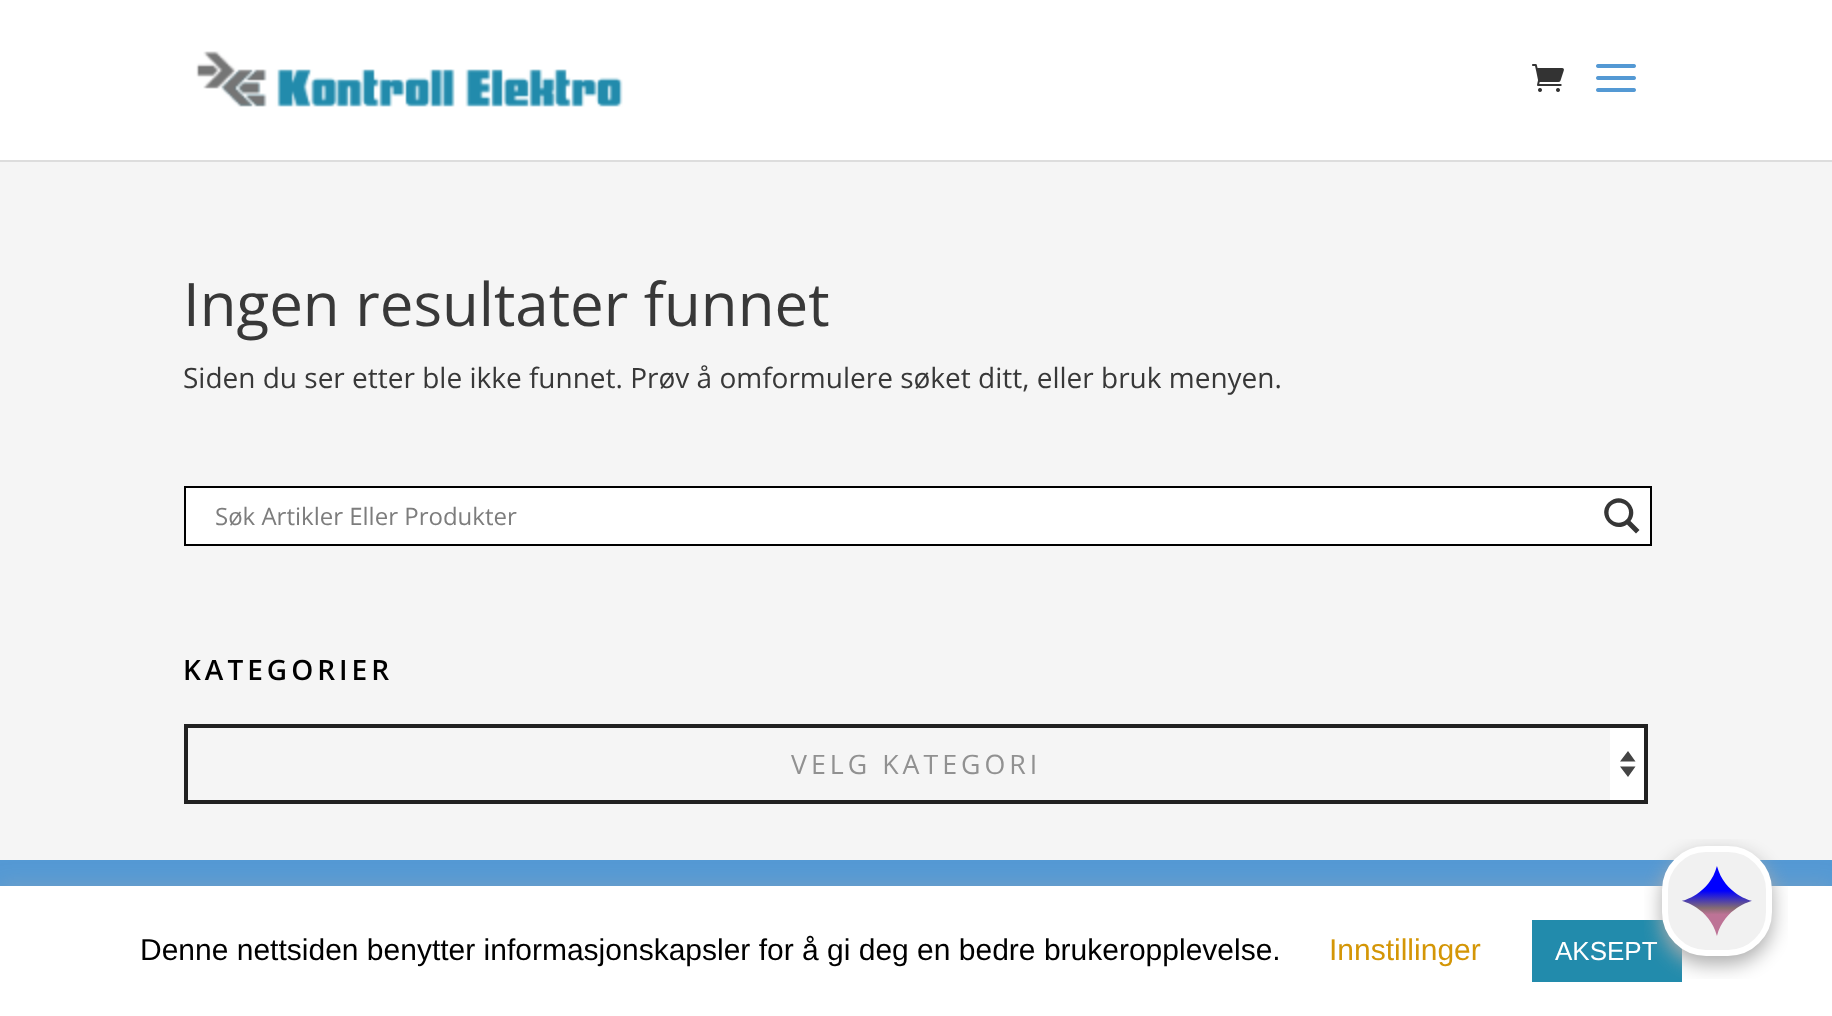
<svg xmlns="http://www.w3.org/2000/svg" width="1832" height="1016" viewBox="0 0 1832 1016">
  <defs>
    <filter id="blur1" x="-50%" y="-200%" width="200%" height="500%"><feGaussianBlur stdDeviation="10"/></filter>
  </defs>
  <rect width="100%" height="100%" fill="#f5f5f5"/>
  <rect x="0" y="160" width="1832" height="2" fill="#dddddd"/>
  <rect x="0" y="0" width="1832" height="160" fill="#ffffff"/>
  <image x="196" y="51" width="427" height="56" href="img1.png"/>
  <image x="1532" y="64" width="32" height="28" href="img2.png"/>
  <image x="1596" y="64" width="40" height="28" href="img3.png"/>
  <text x="183" y="326" font-family="Open Sans" font-size="60" fill="#383838">Ingen resultater funnet</text>
  <text x="183" y="388" font-family="Open Sans" font-size="28" fill="#383838">Siden du ser etter ble ikke funnet. Prøv å omformulere søket ditt, eller bruk menyen.</text>
  <rect x="185" y="487" width="1466" height="58" fill="#ffffff" stroke="#000000" stroke-width="2"/>
  <text x="215" y="525" font-family="Open Sans" font-size="24" fill="#7d7d7d">Søk Artikler Eller Produkter</text>
  <path d="M1639.5 530L1630.5 521C1640.5 507 1621.5 490 1608.5 502.5C1596 515 1613 534 1627 524.5L1636 533.5ZM1608.5 512.5C1608.5 499.5 1629 499.5 1629 512.5C1629 526 1608.5 526 1608.5 512.5Z" fill="#363636"/>
  <text x="183" y="680" font-family="Open Sans" font-size="28" font-weight="600" letter-spacing="4" fill="#000000">KATEGORIER</text>
  <rect x="1610" y="728" width="34" height="72" fill="#ffffff"/>
  <path d="M1620 761.5L1628 751L1635.5 761.5ZM1635.5 766.5L1628 777L1620 766.5Z" fill="#444444"/>
  <rect x="186" y="726" width="1460" height="76" fill="none" stroke="#212121" stroke-width="4"/>
  <text x="791" y="774" font-family="Open Sans" font-size="26.75" letter-spacing="4" fill="#919191">VELG KATEGORI</text>
  <rect x="0" y="860" width="1832" height="26" fill="#5499d4"/>
  <rect x="0" y="884" width="1832" height="130" fill="#acabab" fill-opacity="0.3" filter="url(#blur1)"/>
  <rect x="0" y="886" width="1832" height="130" fill="#ffffff"/>
  <text x="140" y="960" font-family="Liberation Sans" font-size="30" fill="#000000">Denne nettsiden benytter informasjonskapsler for å gi deg en bedre brukeropplevelse.</text>
  <text x="1329" y="960" font-family="Liberation Sans" font-size="30" fill="#d49606">Innstillinger</text>
  <rect x="1532" y="920" width="150" height="62" fill="#228bac"/>
  <text x="1555" y="960" font-family="Liberation Sans" font-size="26" fill="#ffffff">AKSEPT</text>
  <image x="1644" y="839" width="144" height="140" href="img4.png"/>
</svg>
